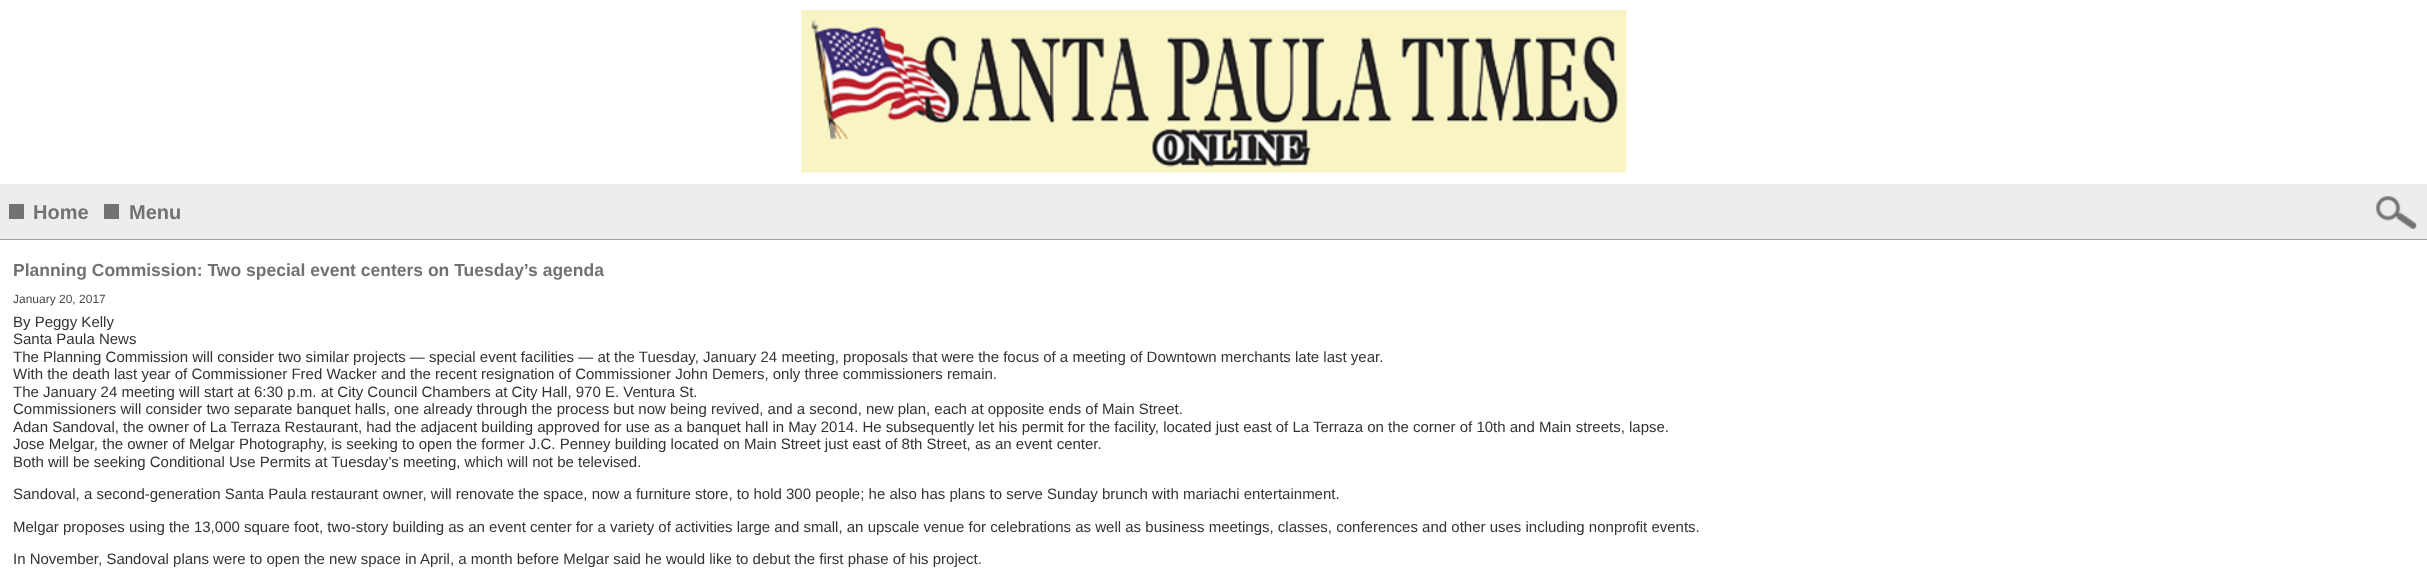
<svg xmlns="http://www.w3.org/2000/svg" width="2427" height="572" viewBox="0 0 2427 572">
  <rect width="100%" height="100%" fill="#ffffff"/>
  <image x="801" y="10" width="826" height="163" href="img1.png"/>
  <rect x="0" y="184" width="2427" height="55" fill="#ededed"/>
  <rect x="0" y="239" width="2427" height="1" fill="#9f9f9f"/>
  <rect x="9" y="204" width="15" height="15" fill="#727272"/>
  <text x="33" y="219" font-family="Liberation Sans" font-size="20" font-weight="bold" fill="#727272">Home</text>
  <rect x="104" y="204" width="15" height="15" fill="#727272"/>
  <text x="129" y="219" font-family="Liberation Sans" font-size="20" font-weight="bold" fill="#727272">Menu</text>
  <image x="2376" y="196" width="41" height="33" href="img2.png"/>
  <text x="13" y="276" font-family="Liberation Sans" font-size="17.5" font-weight="bold" fill="#727272">Planning Commission: Two special event centers on Tuesday’s agenda</text>
  <text x="13" y="303" font-family="Liberation Sans" font-size="12" fill="#474747">January 20, 2017</text>
  <text x="13" y="327" font-family="Liberation Sans" font-size="15" fill="#333333">By Peggy Kelly</text>
  <text x="13" y="344" font-family="Liberation Sans" font-size="15" fill="#333333">Santa Paula News</text>
  <text x="13" y="362" font-family="Liberation Sans" font-size="15" fill="#333333">The Planning Commission will consider two similar projects — special event facilities — at the Tuesday, January 24 meeting, proposals that were the focus of a meeting of Downtown merchants late last year.</text>
  <text x="13" y="379" font-family="Liberation Sans" font-size="15" fill="#333333">With the death last year of Commissioner Fred Wacker and the recent resignation of Commissioner John Demers, only three commissioners remain.</text>
  <text x="13" y="397" font-family="Liberation Sans" font-size="15" fill="#333333">The January 24 meeting will start at 6:30 p.m. at City Council Chambers at City Hall, 970 E. Ventura St.</text>
  <text x="13" y="414" font-family="Liberation Sans" font-size="15" fill="#333333">Commissioners will consider two separate banquet halls, one already through the process but now being revived, and a second, new plan, each at opposite ends of Main Street.</text>
  <text x="13" y="432" font-family="Liberation Sans" font-size="15" fill="#333333">Adan Sandoval, the owner of La Terraza Restaurant, had the adjacent building approved for use as a banquet hall in May 2014. He subsequently let his permit for the facility, located just east of La Terraza on the corner of 10th and Main streets, lapse.</text>
  <text x="13" y="449" font-family="Liberation Sans" font-size="15" fill="#333333">Jose Melgar, the owner of Melgar Photography, is seeking to open the former J.C. Penney building located on Main Street just east of 8th Street, as an event center.</text>
  <text x="13" y="467" font-family="Liberation Sans" font-size="15" fill="#333333">Both will be seeking Conditional Use Permits at Tuesday’s meeting, which will not be televised.</text>
  <text x="13" y="499" font-family="Liberation Sans" font-size="15" fill="#333333">Sandoval, a second-generation Santa Paula restaurant owner, will renovate the space, now a furniture store, to hold 300 people; he also has plans to serve Sunday brunch with mariachi entertainment.</text>
  <text x="13" y="532" font-family="Liberation Sans" font-size="15" fill="#333333">Melgar proposes using the 13,000 square foot, two-story building as an event center for a variety of activities large and small, an upscale venue for celebrations as well as business meetings, classes, conferences and other uses including nonprofit events.</text>
  <text x="13" y="564" font-family="Liberation Sans" font-size="15" fill="#333333">In November, Sandoval plans were to open the new space in April, a month before Melgar said he would like to debut the first phase of his project.</text>
</svg>
